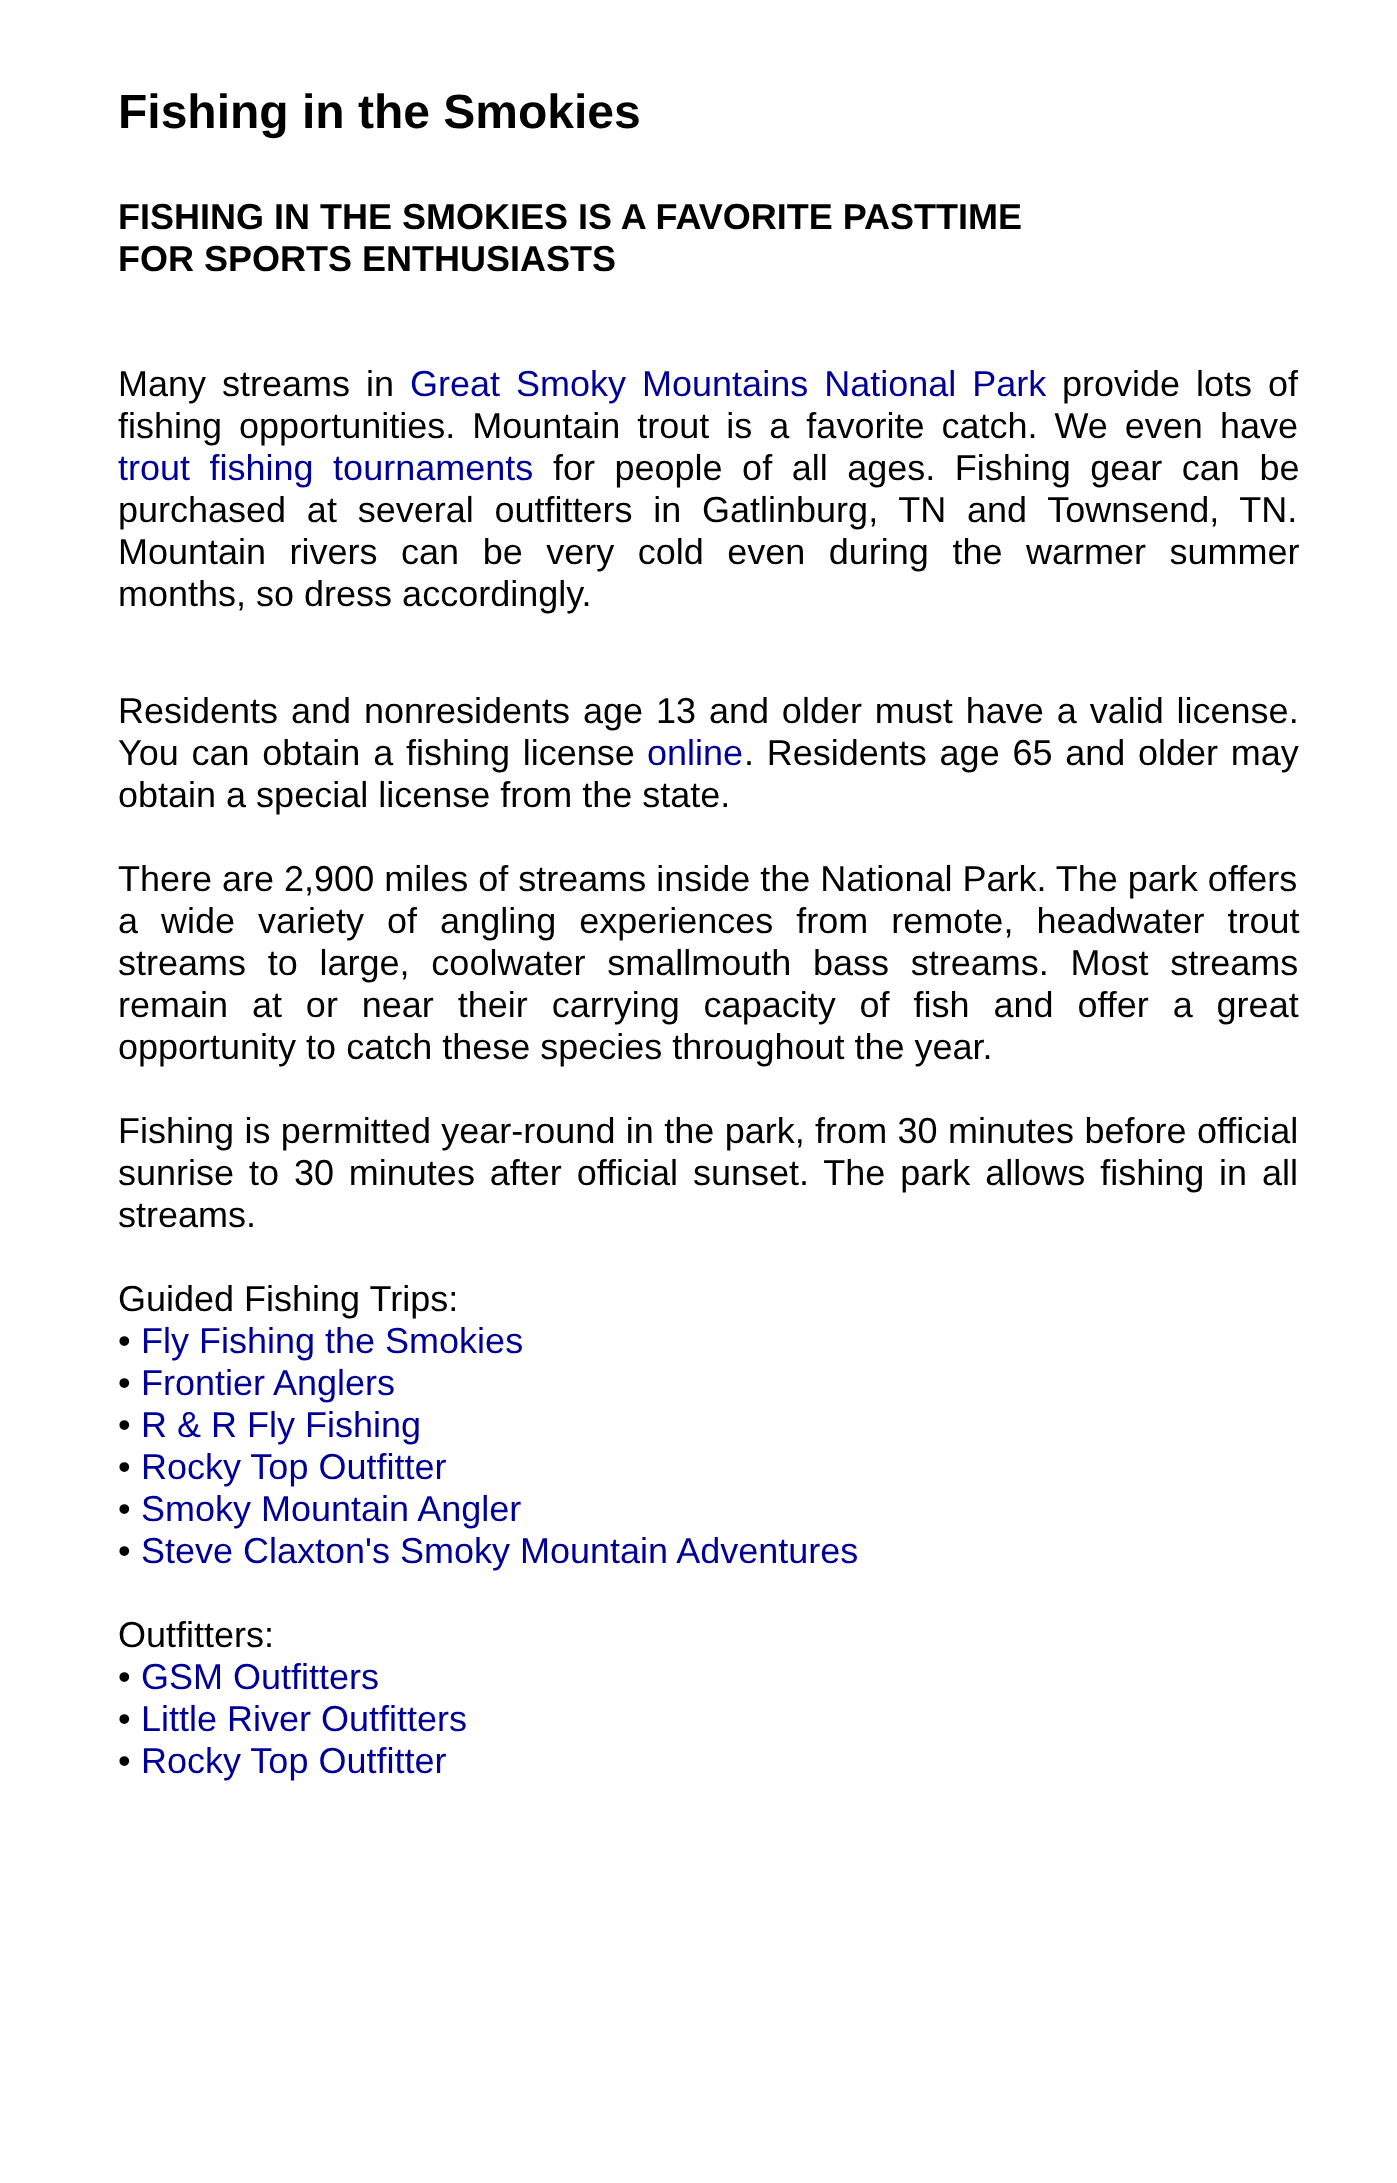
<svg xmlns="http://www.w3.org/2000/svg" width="1397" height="2183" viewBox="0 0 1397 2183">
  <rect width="100%" height="100%" fill="#ffffff"/>
  <text x="118" y="128" font-family="Liberation Sans" font-size="48" font-weight="bold" fill="#000000">Fishing in the Smokies</text>
  <text x="118" y="229" font-family="Liberation Sans" font-size="36" font-weight="bold" fill="#000000">FISHING IN THE SMOKIES IS A FAVORITE PASTTIME</text>
  <text x="118" y="271" font-family="Liberation Sans" font-size="36" font-weight="bold" fill="#000000">FOR SPORTS ENTHUSIASTS</text>
  <text x="118" y="396" word-spacing="6" font-family="Liberation Sans" font-size="36" fill="#000000">Many streams in</text>
  <text x="410" y="396" word-spacing="6" font-family="Liberation Sans" font-size="36" fill="#000099">Great Smoky Mountains National Park</text>
  <text x="1062" y="396" word-spacing="6" font-family="Liberation Sans" font-size="36" fill="#000000">provide lots of</text>
  <text x="118" y="438" word-spacing="7" font-family="Liberation Sans" font-size="36" fill="#000000">fishing opportunities. Mountain trout is a favorite catch. We even have</text>
  <text x="118" y="480" word-spacing="9.5" font-family="Liberation Sans" font-size="36" fill="#000099">trout fishing tournaments</text>
  <text x="553" y="480" word-spacing="9.5" font-family="Liberation Sans" font-size="36" fill="#000000">for people of all ages. Fishing gear can be</text>
  <text x="118" y="522" word-spacing="10.75" font-family="Liberation Sans" font-size="36" fill="#000000">purchased at several outfitters in Gatlinburg, TN and Townsend, TN.</text>
  <text x="118" y="564" word-spacing="13.5" font-family="Liberation Sans" font-size="36" fill="#000000">Mountain rivers can be very cold even during the warmer summer</text>
  <text x="118" y="606" font-family="Liberation Sans" font-size="36" fill="#000000">months, so dress accordingly.</text>
  <text x="118" y="723" word-spacing="2.9" font-family="Liberation Sans" font-size="36" fill="#000000">Residents and nonresidents age 13 and older must have a valid license.</text>
  <text x="118" y="765" word-spacing="2.75" font-family="Liberation Sans" font-size="36" fill="#000000">You can obtain a fishing license</text>
  <text x="647" y="765" font-family="Liberation Sans" font-size="36" fill="#000099">online</text>
  <text x="744" y="765" word-spacing="2.75" font-family="Liberation Sans" font-size="36" fill="#000000">. Residents age 65 and older may</text>
  <text x="118" y="807" font-family="Liberation Sans" font-size="36" fill="#000000">obtain a special license from the state.</text>
  <text x="118" y="891" font-family="Liberation Sans" font-size="36" fill="#000000">There are 2,900 miles of streams inside the National Park. The park offers</text>
  <text x="118" y="933" word-spacing="13" font-family="Liberation Sans" font-size="36" fill="#000000">a wide variety of angling experiences from remote, headwater trout</text>
  <text x="118" y="975" word-spacing="11.75" font-family="Liberation Sans" font-size="36" fill="#000000">streams to large, coolwater smallmouth bass streams. Most streams</text>
  <text x="118" y="1017" word-spacing="13.9" font-family="Liberation Sans" font-size="36" fill="#000000">remain at or near their carrying capacity of fish and offer a great</text>
  <text x="118" y="1059" font-family="Liberation Sans" font-size="36" fill="#000000">opportunity to catch these species throughout the year.</text>
  <text x="118" y="1143" word-spacing="0.4" font-family="Liberation Sans" font-size="36" fill="#000000">Fishing is permitted year-round in the park, from 30 minutes before official</text>
  <text x="118" y="1185" word-spacing="4.9" font-family="Liberation Sans" font-size="36" fill="#000000">sunrise to 30 minutes after official sunset. The park allows fishing in all</text>
  <text x="118" y="1227" font-family="Liberation Sans" font-size="36" fill="#000000">streams.</text>
  <text x="118" y="1311" font-family="Liberation Sans" font-size="36" fill="#000000">Guided Fishing Trips:</text>
  <text x="118" y="1353" font-family="Liberation Sans" font-size="36" fill="#000000">•</text>
  <text x="141" y="1353" font-family="Liberation Sans" font-size="36" fill="#000099">Fly Fishing the Smokies</text>
  <text x="118" y="1395" font-family="Liberation Sans" font-size="36" fill="#000000">•</text>
  <text x="141" y="1395" font-family="Liberation Sans" font-size="36" fill="#000099">Frontier Anglers</text>
  <text x="118" y="1437" font-family="Liberation Sans" font-size="36" fill="#000000">•</text>
  <text x="141" y="1437" font-family="Liberation Sans" font-size="36" fill="#000099">R &amp; R Fly Fishing</text>
  <text x="118" y="1479" font-family="Liberation Sans" font-size="36" fill="#000000">•</text>
  <text x="141" y="1479" font-family="Liberation Sans" font-size="36" fill="#000099">Rocky Top Outfitter</text>
  <text x="118" y="1521" font-family="Liberation Sans" font-size="36" fill="#000000">•</text>
  <text x="141" y="1521" font-family="Liberation Sans" font-size="36" fill="#000099">Smoky Mountain Angler</text>
  <text x="118" y="1563" font-family="Liberation Sans" font-size="36" fill="#000000">•</text>
  <text x="141" y="1563" font-family="Liberation Sans" font-size="36" fill="#000099">Steve Claxton's Smoky Mountain Adventures</text>
  <text x="118" y="1647" font-family="Liberation Sans" font-size="36" fill="#000000">Outfitters:</text>
  <text x="118" y="1689" font-family="Liberation Sans" font-size="36" fill="#000000">•</text>
  <text x="141" y="1689" font-family="Liberation Sans" font-size="36" fill="#000099">GSM Outfitters</text>
  <text x="118" y="1731" font-family="Liberation Sans" font-size="36" fill="#000000">•</text>
  <text x="141" y="1731" font-family="Liberation Sans" font-size="36" fill="#000099">Little River Outfitters</text>
  <text x="118" y="1773" font-family="Liberation Sans" font-size="36" fill="#000000">•</text>
  <text x="141" y="1773" font-family="Liberation Sans" font-size="36" fill="#000099">Rocky Top Outfitter</text>
</svg>
